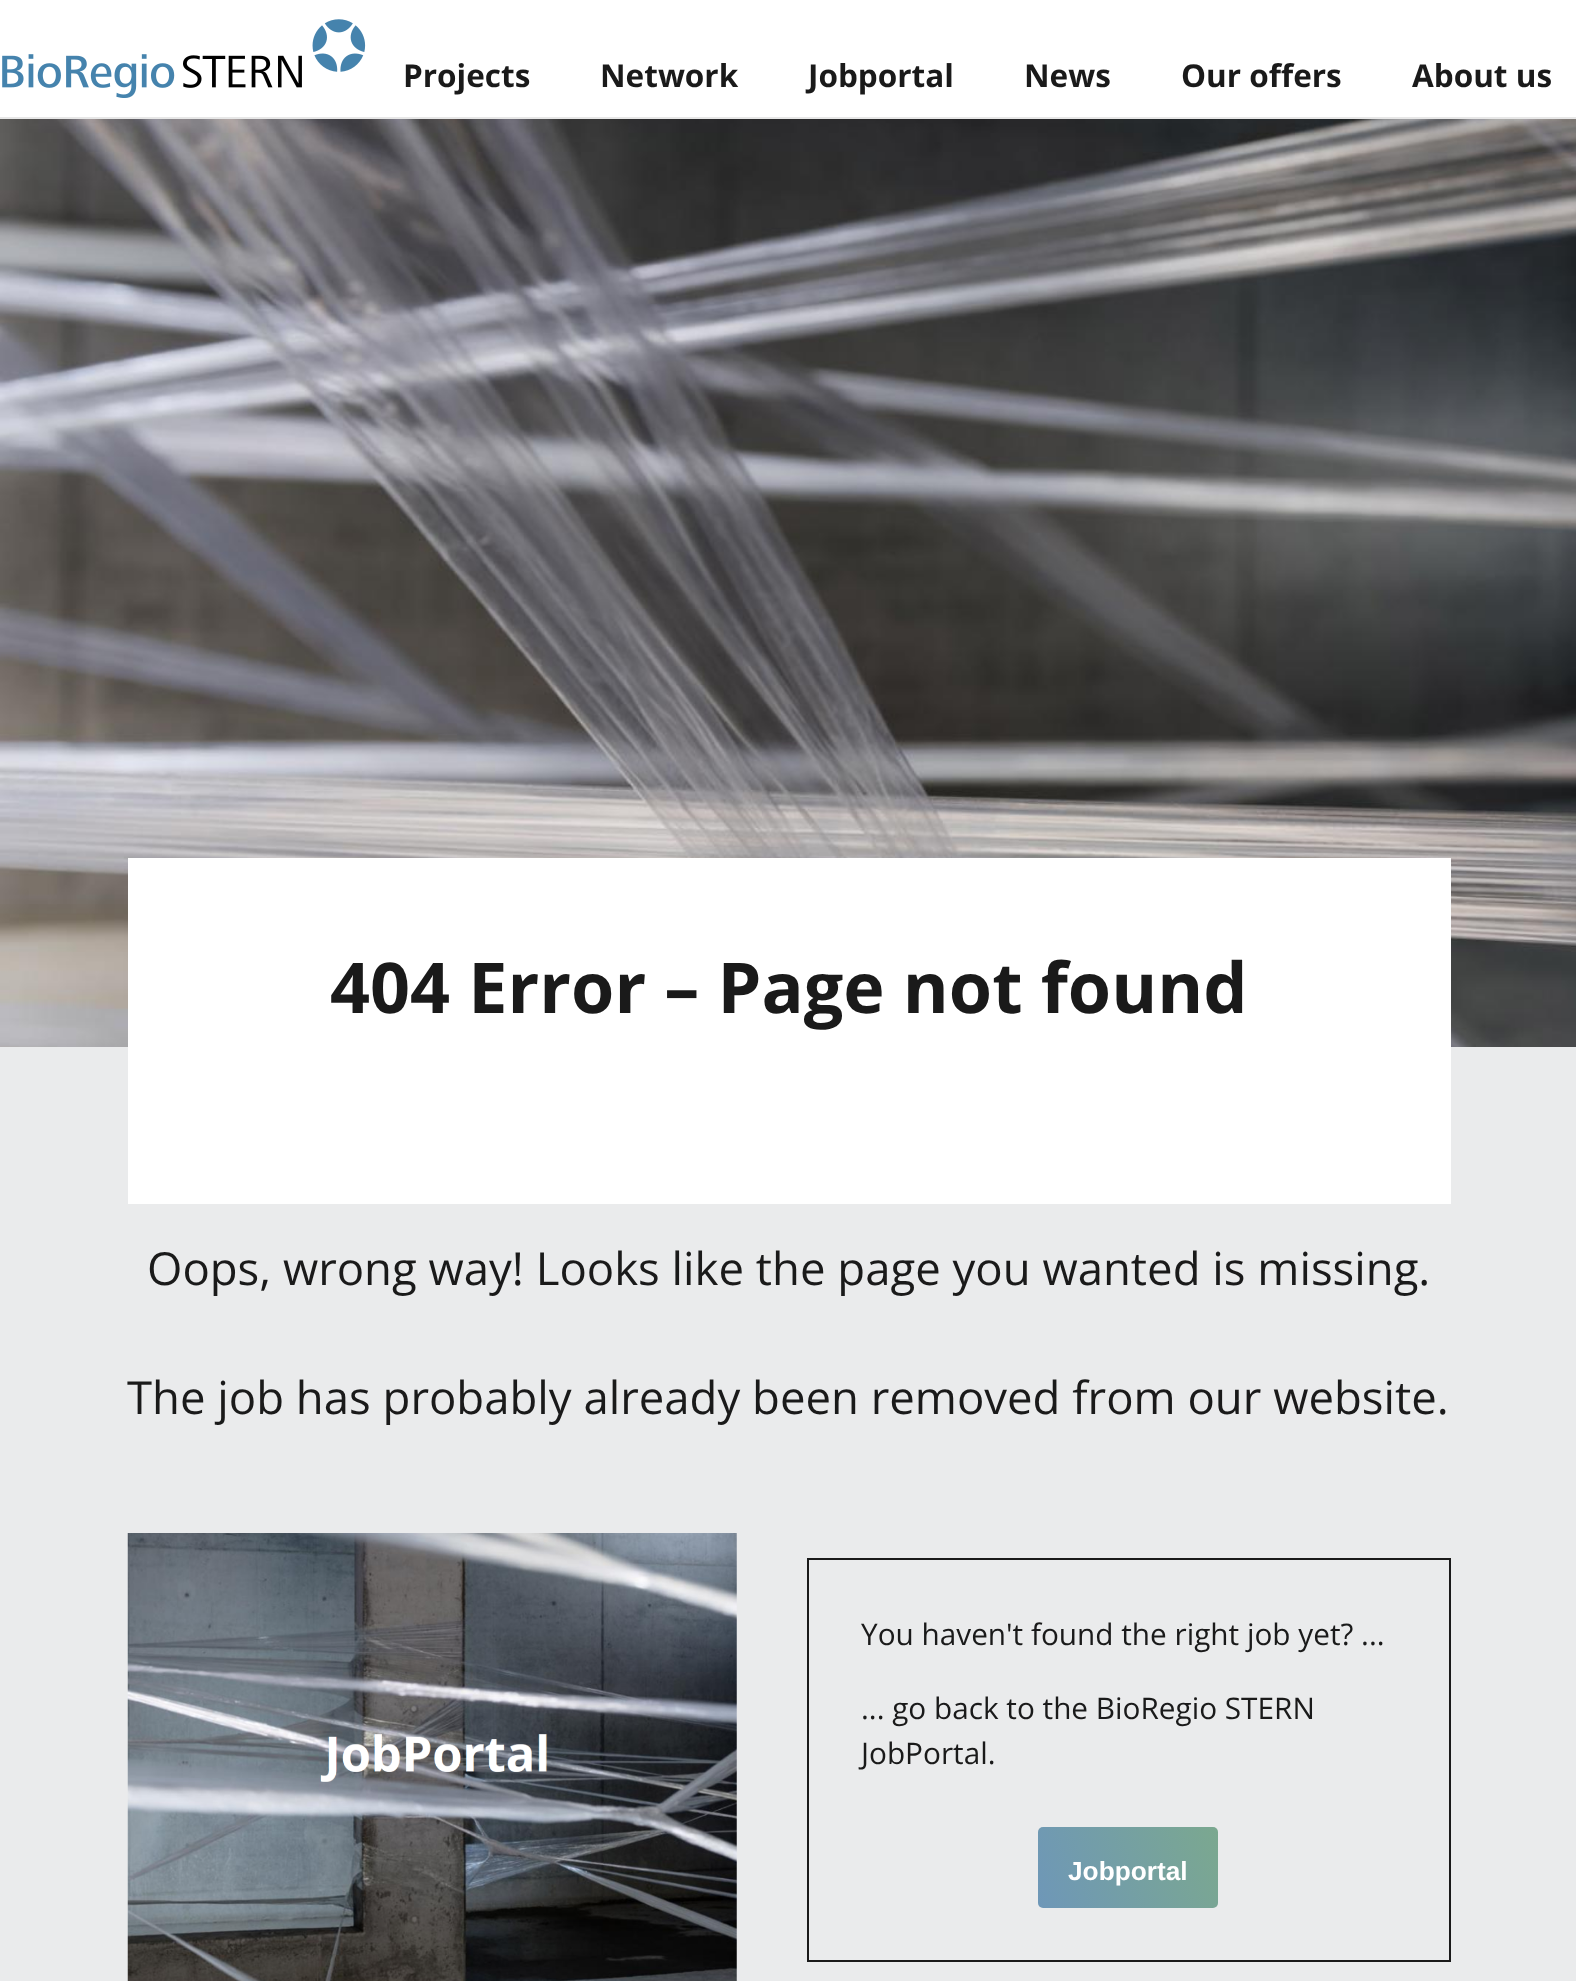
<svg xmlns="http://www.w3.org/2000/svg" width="1576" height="1981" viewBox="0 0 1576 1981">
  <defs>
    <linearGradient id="g1" gradientUnits="userSpaceOnUse" x1="1035" y1="1899" x2="1221" y2="1835"><stop offset="0" stop-color="#6e97b8"/><stop offset="1" stop-color="#7ba88f"/></linearGradient>
  </defs>
  <rect width="100%" height="100%" fill="#eaebec"/>
  <rect x="0" y="0" width="1576" height="117" fill="#ffffff"/>
  <rect x="0" y="117" width="1576" height="2" fill="#e7e7e7"/>
  <image x="2" y="19" width="364" height="79" href="img1.png"/>
  <text x="403" y="87" font-family="Open Sans" font-size="31.5" font-weight="bold" fill="#1a1a1a">Projects</text>
  <text x="600" y="87" font-family="Open Sans" font-size="31.5" font-weight="bold" fill="#1a1a1a">Network</text>
  <text x="808" y="87" font-family="Open Sans" font-size="31.5" font-weight="bold" fill="#1a1a1a">Jobportal</text>
  <text x="1024" y="87" font-family="Open Sans" font-size="31.5" font-weight="bold" fill="#1a1a1a">News</text>
  <text x="1181" y="87" font-family="Open Sans" font-size="31.5" font-weight="bold" fill="#1a1a1a">Our offers</text>
  <text x="1412" y="87" font-family="Open Sans" font-size="31.5" font-weight="bold" fill="#1a1a1a">About us</text>
  <image x="0" y="119" width="1576" height="928" href="img2.png"/>
  <rect x="128" y="858" width="1323" height="346" fill="#ffffff"/>
  <text x="330" y="1013" font-family="Open Sans" font-size="70" font-weight="bold" fill="#1a1a1a">404 Error – Page not found</text>
  <text x="147" y="1285" font-family="Open Sans" font-size="45.5" fill="#1a1a1a">Oops, wrong way! Looks like the page you wanted is missing.</text>
  <text x="127" y="1414" font-family="Open Sans" font-size="45.5" fill="#1a1a1a">The job has probably already been removed from our website.</text>
  <image x="127" y="1533" width="610" height="448" href="img3.png"/>
  <rect x="808" y="1559" width="642" height="402" fill="none" stroke="#1a1a1a" stroke-width="2"/>
  <text x="861" y="1645" font-family="Open Sans" font-size="29.75" fill="#1a1a1a">You haven't found the right job yet? ...</text>
  <text x="861" y="1719" font-family="Open Sans" font-size="29.75" fill="#1a1a1a">... go back to the BioRegio STERN</text>
  <text x="861" y="1764" font-family="Open Sans" font-size="29.75" fill="#1a1a1a">JobPortal.</text>
  <rect x="1038" y="1827" width="180" height="81" rx="5" fill="url(#g1)"/>
  <text x="1068" y="1880" font-family="Liberation Sans" font-size="26.25" font-weight="bold" fill="#ffffff">Jobportal</text>
</svg>
